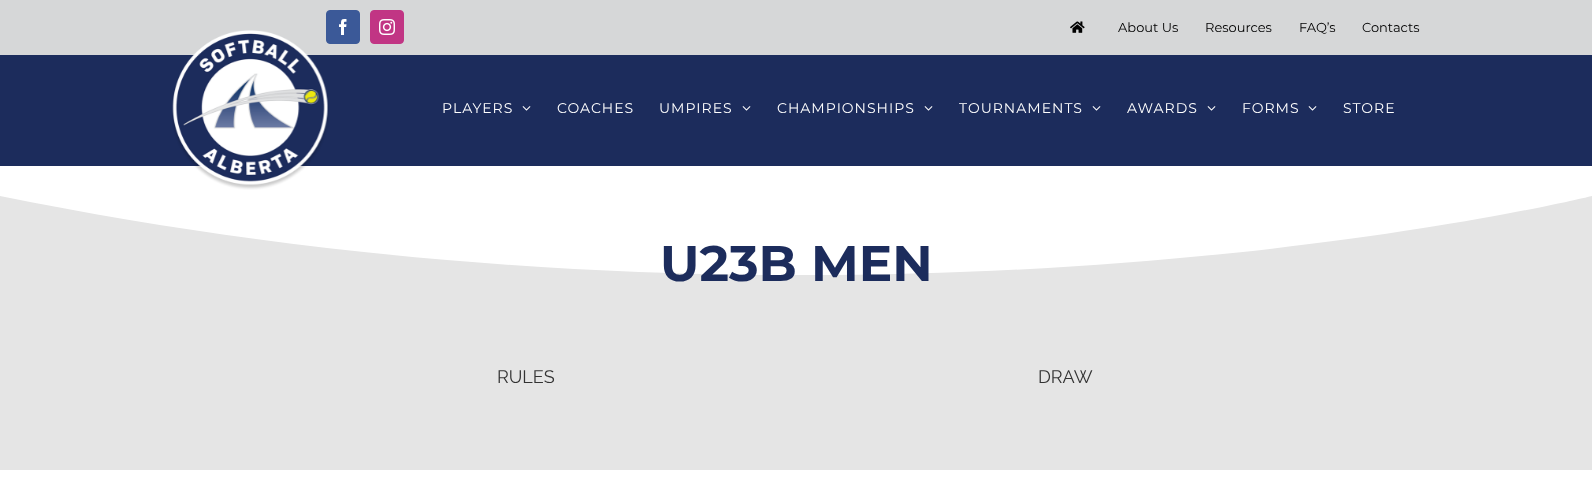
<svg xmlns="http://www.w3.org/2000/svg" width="1592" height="485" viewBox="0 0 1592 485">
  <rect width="100%" height="100%" fill="#ffffff"/>
  <rect x="0" y="0" width="1592" height="55" fill="#d6d7d8"/>
  <rect x="326.5" y="10.5" width="33" height="33" rx="3.5" fill="#3b5998" stroke="#3b5998"/>
  <image x="339" y="19" width="8" height="16" href="img1.png"/>
  <rect x="370.5" y="10.5" width="33" height="33" rx="3.5" fill="#c13584" stroke="#c13584"/>
  <image x="379" y="19" width="16" height="16" href="img2.png"/>
  <image x="1070" y="21" width="15" height="12" href="img3.png"/>
  <text x="1118" y="32" font-family="Montserrat" font-size="13" fill="#000000">About Us</text>
  <text x="1205" y="32" font-family="Montserrat" font-size="13" fill="#000000">Resources</text>
  <text x="1299" y="32" font-family="Montserrat" font-size="13" fill="#000000">FAQ’s</text>
  <text x="1362" y="32" font-family="Montserrat" font-size="13" fill="#000000">Contacts</text>
  <rect x="0" y="55" width="1592" height="111" fill="#1c2c5c"/>
  <image x="172" y="30" width="157" height="160" href="img4.png"/>
  <text x="442" y="113" font-family="Montserrat" font-size="14" letter-spacing="1" fill="#ffffff">PLAYERS</text>
  <image x="522" y="106" width="9" height="5" href="img5.png"/>
  <text x="557" y="113" font-family="Montserrat" font-size="14" letter-spacing="1" fill="#ffffff">COACHES</text>
  <text x="659" y="113" font-family="Montserrat" font-size="14" letter-spacing="1" fill="#ffffff">UMPIRES</text>
  <image x="742" y="106" width="9" height="5" href="img5.png"/>
  <text x="777" y="113" font-family="Montserrat" font-size="14" letter-spacing="1" fill="#ffffff">CHAMPIONSHIPS</text>
  <image x="924" y="106" width="9" height="5" href="img5.png"/>
  <text x="959" y="113" font-family="Montserrat" font-size="14" letter-spacing="1" fill="#ffffff">TOURNAMENTS</text>
  <image x="1092" y="106" width="9" height="5" href="img5.png"/>
  <text x="1127" y="113" font-family="Montserrat" font-size="14" letter-spacing="1" fill="#ffffff">AWARDS</text>
  <image x="1207" y="106" width="9" height="5" href="img5.png"/>
  <text x="1242" y="113" font-family="Montserrat" font-size="14" letter-spacing="1" fill="#ffffff">FORMS</text>
  <image x="1308" y="106" width="9" height="5" href="img5.png"/>
  <text x="1343" y="113" font-family="Montserrat" font-size="14" letter-spacing="1" fill="#ffffff">STORE</text>
  <rect x="0" y="196" width="1592" height="274" fill="#e5e5e5"/>
  <path d="M0 196C876 374 1592 196 1592 196Z" fill="#ffffff"/>
  <text x="660" y="281" font-family="Montserrat" font-size="50" font-weight="bold" fill="#1c2c5c">U23B MEN</text>
  <text x="497" y="383" font-family="Raleway" font-size="18" fill="#333333">RULES</text>
  <text x="1038" y="383" font-family="Raleway" font-size="18" fill="#333333">DRAW</text>
</svg>
